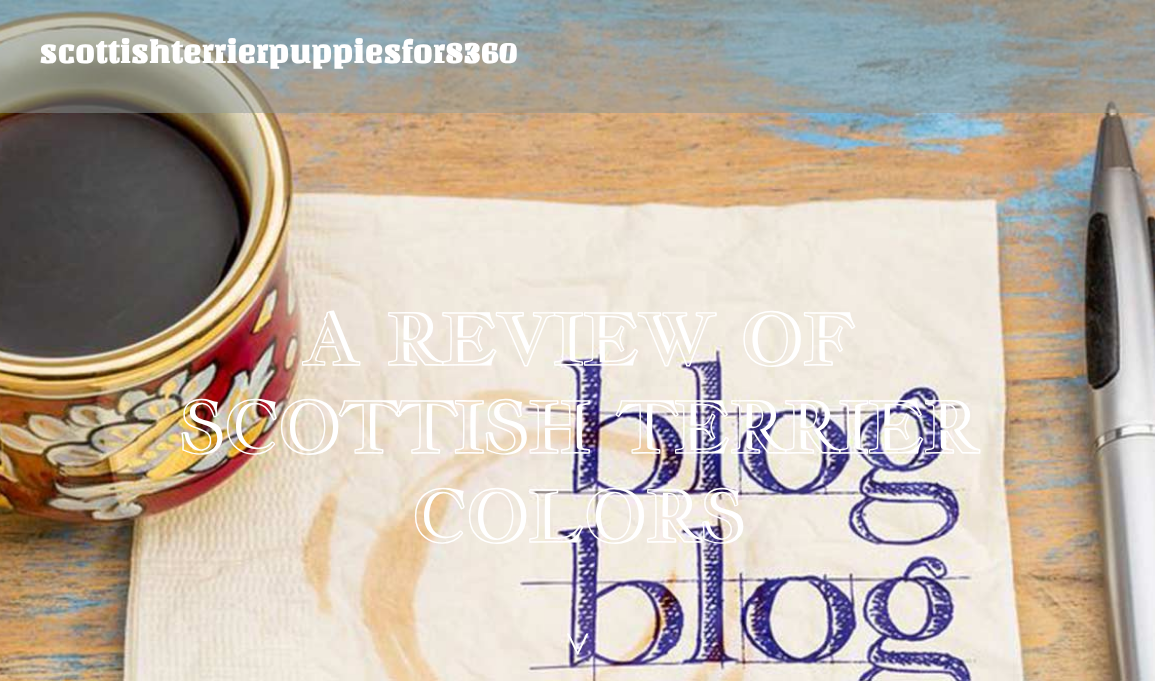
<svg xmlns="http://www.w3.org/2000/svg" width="1155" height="681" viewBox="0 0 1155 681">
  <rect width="100%" height="100%" fill="#ffffff"/>
  <image x="0" y="0" width="1155" height="681" href="img1.png"/>
  <rect x="0" y="0" width="1155" height="113" fill="#8e9895" fill-opacity="0.5"/>
  <text x="39" y="63" font-family="Unlock" font-size="31.5" font-weight="bold" fill="#ffffff">scottishterrierpuppiesfor8360</text>
  <text x="301" y="364" word-spacing="12" font-family="Jacques Francois Shadow" font-size="70.5" letter-spacing="-3" fill="#ffffff">A REVIEW OF</text>
  <text x="178" y="452" word-spacing="12" font-family="Jacques Francois Shadow" font-size="70.5" letter-spacing="-3" fill="#ffffff">SCOTTISH TERRIER</text>
  <text x="411" y="541" font-family="Jacques Francois Shadow" font-size="70.5" letter-spacing="-3" fill="#ffffff">COLORS</text>
  <text x="565" y="659" font-family="Liberation Serif" font-size="45" fill="#ffffff">˅</text>
</svg>
